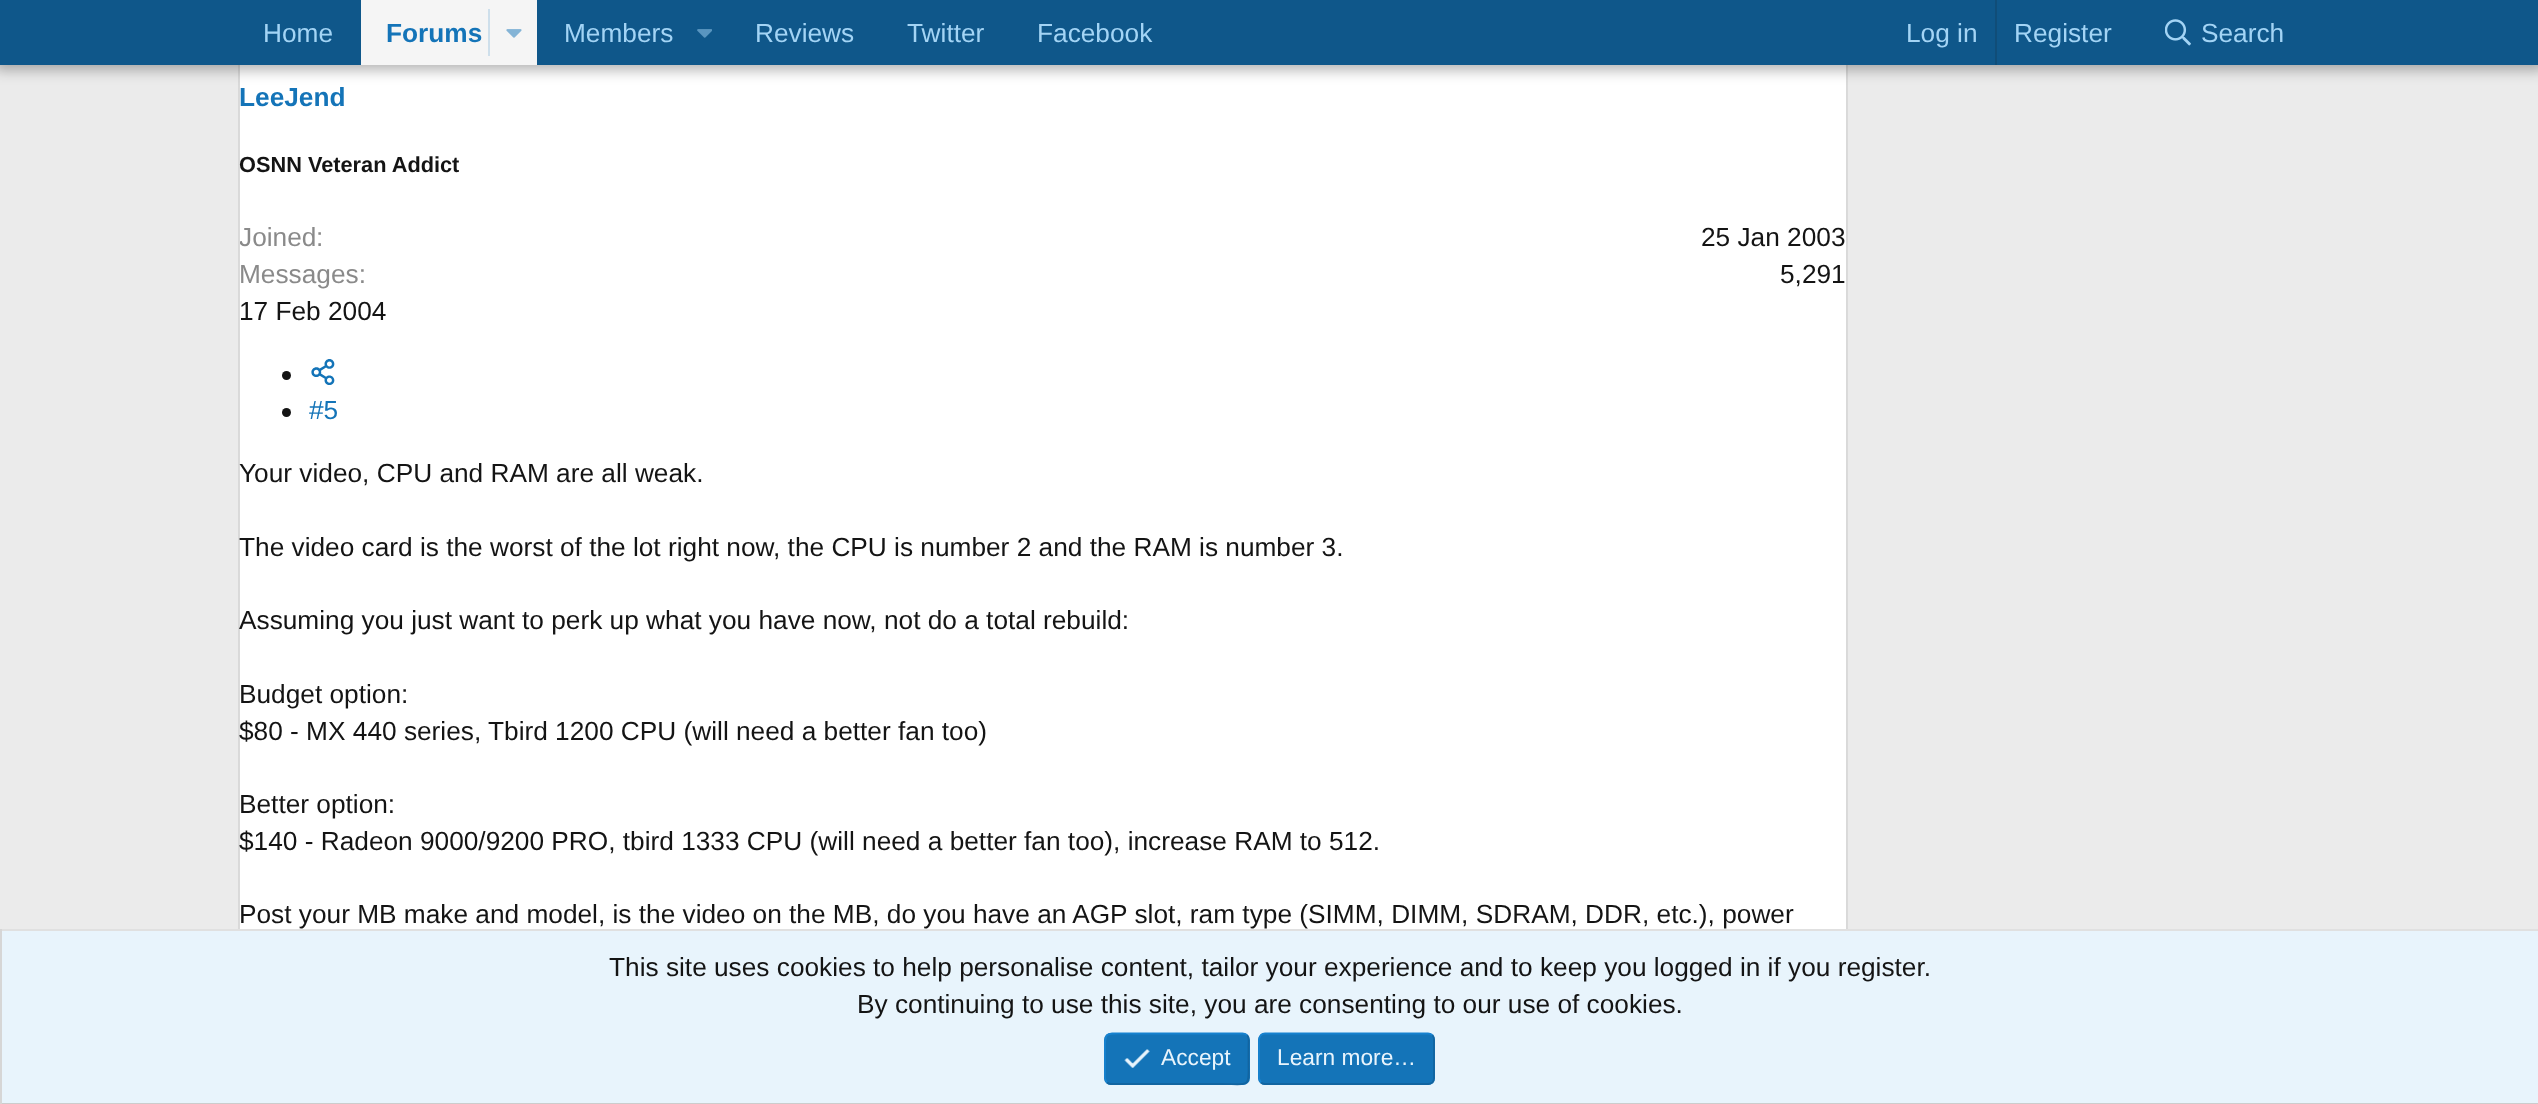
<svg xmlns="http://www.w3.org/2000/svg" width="2538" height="1104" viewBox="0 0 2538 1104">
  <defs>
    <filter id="blur1" x="-50%" y="-200%" width="200%" height="500%"><feGaussianBlur stdDeviation="7"/></filter>
    <clipPath id="clip1"><rect x="240" y="219" width="1606" height="37"/></clipPath>
  </defs>
  <rect width="100%" height="100%" fill="#ebebeb"/>
  <rect x="238" y="65" width="1610" height="864" fill="#ffffff"/>
  <path d="M1845.5-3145.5C1846.5-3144.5 1847-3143 1847-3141V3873C1847 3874.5 1846.5 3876 1845.5 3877" fill="none" stroke="#d6d6d6" stroke-width="1.8"/>
  <path d="M240.5 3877C239.5 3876 239 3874.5 239 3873V-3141C239-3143 239.5-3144.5 240.5-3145.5" fill="none" stroke="#d6d6d6" stroke-width="1.8"/>
  <rect x="-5" y="-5" width="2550" height="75" fill="#000000" fill-opacity="0.3" filter="url(#blur1)"/>
  <rect x="0" y="0" width="2538" height="65" fill="#0f578a"/>
  <text x="263" y="42" font-family="Liberation Sans" font-size="26.25" fill="#a3d4f5">Home</text>
  <rect x="361" y="0" width="176" height="65" fill="#f5f5f5"/>
  <text x="386" y="42" font-family="Liberation Sans" font-size="26.25" font-weight="bold" fill="#1474b8">Forums</text>
  <rect x="488" y="9" width="2" height="47" fill="#cedfeb"/>
  <image x="506" y="29" width="16" height="9" href="img1.png"/>
  <text x="564" y="42" font-family="Liberation Sans" font-size="26.25" fill="#a3d4f5">Members</text>
  <image x="697" y="29" width="15" height="9" href="img2.png"/>
  <text x="755" y="42" font-family="Liberation Sans" font-size="26.25" fill="#a3d4f5">Reviews</text>
  <text x="907" y="42" font-family="Liberation Sans" font-size="26.25" fill="#a3d4f5">Twitter</text>
  <text x="1037" y="42" font-family="Liberation Sans" font-size="26.25" fill="#a3d4f5">Facebook</text>
  <text x="1906" y="42" font-family="Liberation Sans" font-size="26.25" fill="#a3d4f5">Log in</text>
  <rect x="1995" y="0" width="2" height="65" fill="#104d78"/>
  <text x="2014" y="42" font-family="Liberation Sans" font-size="26.25" fill="#a3d4f5">Register</text>
  <image x="2165" y="19" width="26" height="27" href="img3.png"/>
  <text x="2201" y="42" font-family="Liberation Sans" font-size="26.25" fill="#a3d4f5">Search</text>
  <text x="239" y="106" font-family="Liberation Sans" font-size="26.25" font-weight="bold" fill="#1474b8">LeeJend</text>
  <text x="239" y="172" font-family="Liberation Sans" font-size="21.75" font-weight="bold" fill="#141414">OSNN Veteran Addict</text>
  <g clip-path="url(#clip1)">
    <text x="239" y="246" font-family="Liberation Sans" font-size="26.25" fill="#8a8a8a">Joined</text>
  </g>
  <text x="316" y="246" font-family="Liberation Sans" font-size="26.25" fill="#8a8a8a">:</text>
  <text x="1701" y="246" font-family="Liberation Sans" font-size="26.25" fill="#141414">25 Jan 2003</text>
  <text x="239" y="283" font-family="Liberation Sans" font-size="26.25" fill="#8a8a8a">Messages:</text>
  <text x="1780" y="283" font-family="Liberation Sans" font-size="26.25" fill="#141414">5,291</text>
  <text x="239" y="320" font-family="Liberation Sans" font-size="26.25" fill="#141414">17 Feb 2004</text>
  <circle cx="286.5" cy="375.5" r="4.5" fill="#141414"/>
  <image x="311" y="359" width="24" height="26" href="img4.png"/>
  <circle cx="286.5" cy="412.5" r="4.5" fill="#141414"/>
  <text x="309" y="419" font-family="Liberation Sans" font-size="26.25" fill="#1474b8">#5</text>
  <text x="239" y="482" font-family="Liberation Sans" font-size="26.25" fill="#141414">Your video, CPU and RAM are all weak.</text>
  <text x="239" y="556" font-family="Liberation Sans" font-size="26.25" fill="#141414">The video card is the worst of the lot right now, the CPU is number 2 and the RAM is number 3.</text>
  <text x="239" y="629" font-family="Liberation Sans" font-size="26.25" fill="#141414">Assuming you just want to perk up what you have now, not do a total rebuild:</text>
  <text x="239" y="703" font-family="Liberation Sans" font-size="26.25" fill="#141414">Budget option:</text>
  <text x="239" y="740" font-family="Liberation Sans" font-size="26.25" fill="#141414">$80 - MX 440 series, Tbird 1200 CPU (will need a better fan too)</text>
  <text x="239" y="813" font-family="Liberation Sans" font-size="26.25" fill="#141414">Better option:</text>
  <text x="239" y="850" font-family="Liberation Sans" font-size="26.25" fill="#141414">$140 - Radeon 9000/9200 PRO, tbird 1333 CPU (will need a better fan too), increase RAM to 512.</text>
  <text x="239" y="923" font-family="Liberation Sans" font-size="26.25" fill="#141414">Post your MB make and model, is the video on the MB, do you have an AGP slot, ram type (SIMM, DIMM, SDRAM, DDR, etc.), power</text>
  <rect x="2" y="931" width="2536" height="172" fill="#e8f4fc"/>
  <rect x="0" y="929" width="2538" height="2" fill="#e0e0e0"/>
  <rect x="0" y="1103" width="2538" height="1" fill="#cccccc"/>
  <rect x="0" y="929" width="2" height="175" fill="#d6d6d6"/>
  <text x="609" y="976" font-family="Liberation Sans" font-size="26.25" fill="#141414">This site uses cookies to help personalise content, tailor your experience and to keep you logged in if you register.</text>
  <text x="857" y="1013" font-family="Liberation Sans" font-size="26.25" fill="#141414">By continuing to use this site, you are consenting to our use of cookies.</text>
  <rect x="1104" y="1033" width="146" height="52" rx="7" fill="#1474b8"/>
  <path d="M1247 1035C1249.5 1038 1248.5 1042.5 1248.5 1046V1059C1248.5 1088.5 1252.5 1084 1220.5 1084H1111C1109.5 1084 1108 1083.5 1107 1082.5" fill="none" stroke="#1265a1" stroke-width="1.8"/>
  <path d="M1107 1082.5C1104 1079.5 1105 1075 1105 1071.5V1059C1105 1029 1101.5 1033.5 1133 1033.5H1242.5C1244 1033.5 1245.5 1034 1247 1035" fill="none" stroke="#1782cf" stroke-width="1.8"/>
  <image x="1124" y="1049" width="26" height="19" href="img5.png"/>
  <text x="1161" y="1065" font-family="Liberation Sans" font-size="22.75" fill="#e8f4fc">Accept</text>
  <rect x="1258" y="1033" width="177" height="52" rx="7" fill="#1474b8"/>
  <path d="M1432.5 1035C1433.5 1036.5 1434 1038 1434 1039.5V1078C1434 1079.5 1433.5 1081 1432.5 1082.5C1431 1083.5 1429.5 1084 1428 1084H1265C1263.5 1084 1262 1083.5 1261 1082.5" fill="none" stroke="#1265a1" stroke-width="1.8"/>
  <path d="M1261 1082.5C1260 1081 1259 1079.5 1259 1078V1039.5C1259 1038 1260 1036.5 1261 1035C1262 1034 1263.5 1033.5 1265 1033.5H1428C1429.5 1033.5 1431 1034 1432.5 1035" fill="none" stroke="#1782cf" stroke-width="1.8"/>
  <text x="1277" y="1065" font-family="Liberation Sans" font-size="22.75" fill="#e8f4fc">Learn more…</text>
</svg>
